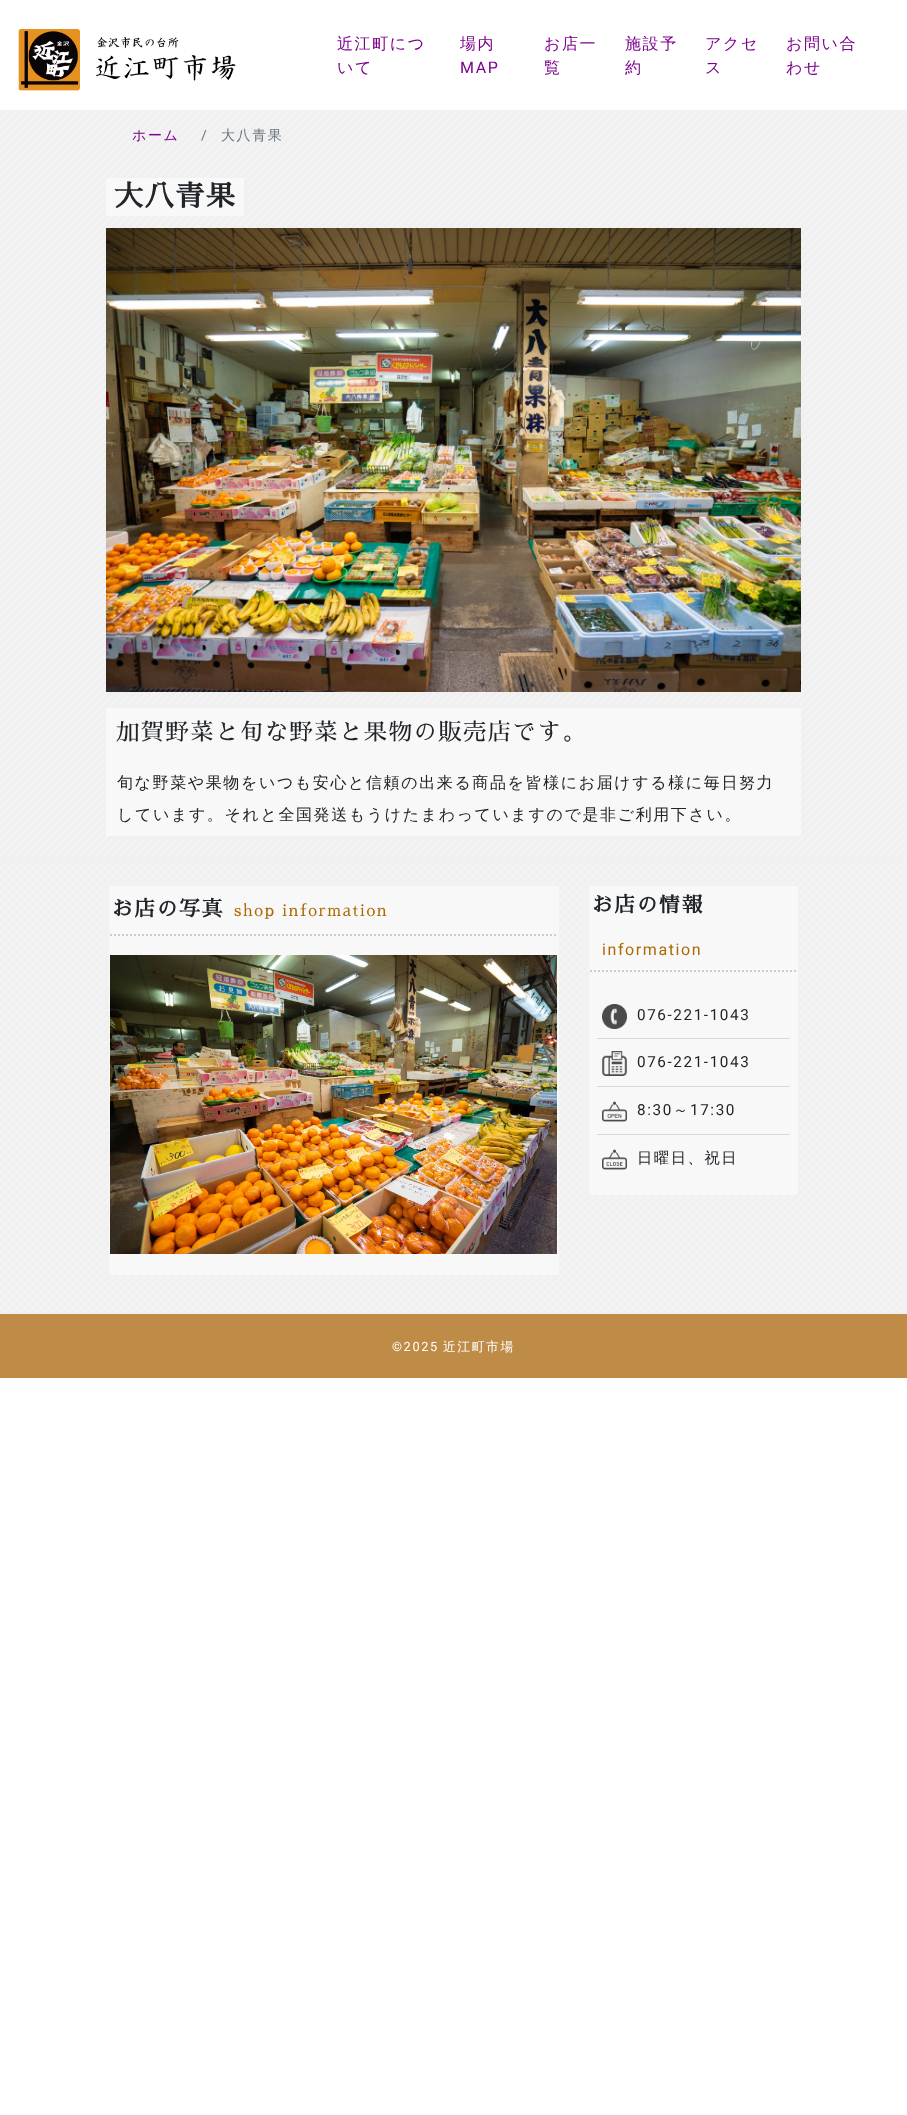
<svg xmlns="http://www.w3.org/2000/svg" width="907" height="2115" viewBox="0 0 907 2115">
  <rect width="100%" height="100%" fill="#ffffff"/>
  <image x="18" y="29" width="218" height="62" href="img1.png"/>
  <text x="337" y="49" font-family="WenQuanYi Zen Hei" font-size="16" font-weight="500" letter-spacing="1.6" fill="#7c008c">近江町につ</text>
  <text x="337" y="73" font-family="WenQuanYi Zen Hei" font-size="16" font-weight="500" letter-spacing="1.6" fill="#7c008c">いて</text>
  <text x="460" y="49" font-family="WenQuanYi Zen Hei" font-size="16" font-weight="500" letter-spacing="1.6" fill="#7c008c">場内</text>
  <text x="460" y="73" font-family="Roboto" font-size="16" letter-spacing="1.6" fill="#7c008c">MAP</text>
  <text x="544" y="49" font-family="WenQuanYi Zen Hei" font-size="16" font-weight="500" letter-spacing="1.6" fill="#7c008c">お店一</text>
  <text x="544" y="73" font-family="WenQuanYi Zen Hei" font-size="16" font-weight="500" letter-spacing="1.6" fill="#7c008c">覧</text>
  <text x="625" y="49" font-family="WenQuanYi Zen Hei" font-size="16" font-weight="500" letter-spacing="1.6" fill="#7c008c">施設予</text>
  <text x="625" y="73" font-family="WenQuanYi Zen Hei" font-size="16" font-weight="500" letter-spacing="1.6" fill="#7c008c">約</text>
  <text x="705" y="49" font-family="WenQuanYi Zen Hei" font-size="16" font-weight="500" letter-spacing="1.6" fill="#7c008c">アクセ</text>
  <text x="705" y="73" font-family="WenQuanYi Zen Hei" font-size="16" font-weight="500" letter-spacing="1.6" fill="#7c008c">ス</text>
  <text x="786" y="49" font-family="WenQuanYi Zen Hei" font-size="16" font-weight="500" letter-spacing="1.6" fill="#7c008c">お問い合</text>
  <text x="786" y="73" font-family="WenQuanYi Zen Hei" font-size="16" font-weight="500" letter-spacing="1.6" fill="#7c008c">わせ</text>
  <image x="0" y="110" width="907" height="749" href="img2.png"/>
  <text x="132" y="140" font-family="WenQuanYi Zen Hei" font-size="14" font-weight="500" letter-spacing="1.6" fill="#7c008c">ホーム</text>
  <text x="201" y="140" font-family="Roboto" font-size="14" letter-spacing="1.6" fill="#6c757d">/</text>
  <text x="221" y="140" font-family="WenQuanYi Zen Hei" font-size="14" font-weight="500" letter-spacing="1.6" fill="#6c757d">大八青果</text>
  <rect x="106" y="178" width="138" height="38" fill="#f8f8f8"/>
  <text x="114" y="206" font-family="Sawarabi Mincho" font-size="29" font-weight="bold" letter-spacing="1.6" fill="#212529">大八青果</text>
  <image x="106" y="228" width="695" height="464" href="img3.png"/>
  <rect x="106" y="708" width="695" height="128" fill="#f8f8f8"/>
  <text x="116" y="740" font-family="Sawarabi Mincho" font-size="23.2" letter-spacing="1.6" fill="#212529">加賀野菜と旬な野菜と果物の販売店です。</text>
  <text x="117" y="788" font-family="WenQuanYi Zen Hei" font-size="16" font-weight="500" letter-spacing="1.6" fill="#212529">旬な野菜や果物をいつも安心と信頼の出来る商品を皆様にお届けする様に毎日努力</text>
  <text x="117" y="820" font-family="WenQuanYi Zen Hei" font-size="16" font-weight="500" letter-spacing="1.6" fill="#212529">しています。それと全国発送もうけたまわっていますので是非ご利用下さい。</text>
  <image x="0" y="859" width="907" height="455" href="img4.png"/>
  <rect x="109" y="886" width="450" height="389" fill="#f8f8f8"/>
  <path d="M110 935H557" fill="none" stroke="#cccccc" stroke-width="2" stroke-dasharray="2 2"/>
  <text x="112" y="916" font-family="Sawarabi Mincho" font-size="20.75" font-weight="bold" letter-spacing="1.6" fill="#212529">お店の写真</text>
  <text x="234" y="916" font-family="Sawarabi Mincho" font-size="16" letter-spacing="1.6" fill="#ac6a00">shop information</text>
  <image x="110" y="955" width="447" height="299" href="img5.png"/>
  <rect x="589" y="886" width="209" height="309" fill="#f8f8f8"/>
  <path d="M590 971H797" fill="none" stroke="#cccccc" stroke-width="2" stroke-dasharray="2 2"/>
  <text x="592" y="912" font-family="Sawarabi Mincho" font-size="20.75" font-weight="bold" letter-spacing="1.6" fill="#212529">お店の情報</text>
  <text x="602" y="955" font-family="Roboto" font-size="16" letter-spacing="1.6" fill="#ac6a00">information</text>
  <image x="602" y="1004" width="25" height="25" href="img6.png"/>
  <text x="637" y="1020" font-family="Roboto" font-size="15.25" letter-spacing="1.6" fill="#212529">076-221-1043</text>
  <image x="602" y="1051" width="25" height="25" href="img7.png"/>
  <rect x="597" y="1038" width="193" height="1" fill="#d9d9d9"/>
  <text x="637" y="1067" font-family="Roboto" font-size="15.25" letter-spacing="1.6" fill="#212529">076-221-1043</text>
  <image x="602" y="1101" width="25" height="21" href="img8.png"/>
  <rect x="597" y="1086" width="193" height="1" fill="#d9d9d9"/>
  <text x="637" y="1115" font-family="Roboto" font-size="15.25" letter-spacing="1.6" fill="#212529">8:30</text>
  <text x="673" y="1115" font-family="WenQuanYi Zen Hei" font-size="15.25" font-weight="500" letter-spacing="1.6" fill="#212529">～</text>
  <text x="690" y="1115" font-family="Roboto" font-size="15.25" letter-spacing="1.6" fill="#212529">17:30</text>
  <image x="602" y="1149" width="25" height="21" href="img9.png"/>
  <rect x="597" y="1134" width="193" height="1" fill="#d9d9d9"/>
  <text x="637" y="1163" font-family="WenQuanYi Zen Hei" font-size="15.25" font-weight="500" letter-spacing="1.6" fill="#212529">日曜日、祝日</text>
  <rect x="0" y="1314" width="907" height="64" fill="#be8c46"/>
  <text x="392" y="1351" font-family="Roboto" font-size="12.75" letter-spacing="1.6" fill="#ffffff">©2025</text>
  <text x="443" y="1351" font-family="WenQuanYi Zen Hei" font-size="12.75" font-weight="500" letter-spacing="1.6" fill="#ffffff">近江町市場</text>
</svg>
